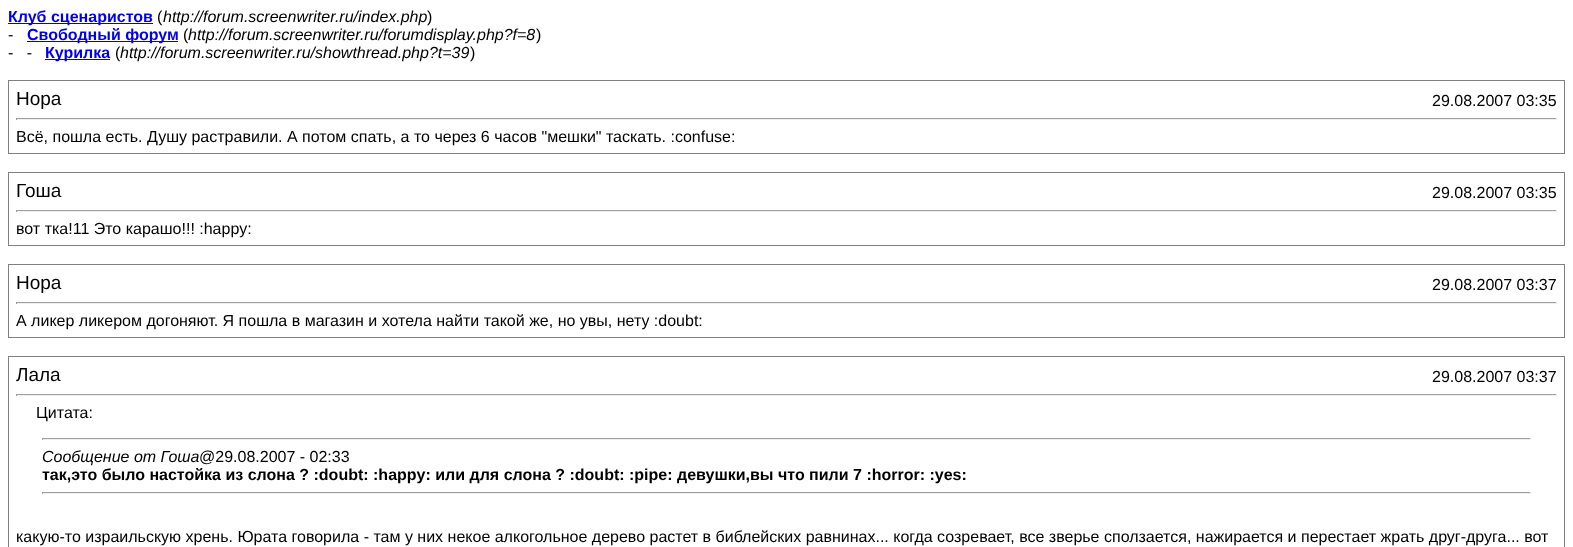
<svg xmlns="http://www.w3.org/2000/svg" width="1573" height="547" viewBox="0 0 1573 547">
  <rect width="100%" height="100%" fill="#ffffff"/>
  <rect x="8" y="23" width="145" height="1" fill="#0000ee"/>
  <text x="8" y="22" font-family="Liberation Sans" font-size="16" font-weight="bold" fill="#0000ee">Клуб сценаристов</text>
  <text x="157" y="22" font-family="Liberation Sans" font-size="16" fill="#000000">(</text>
  <text x="163" y="22" font-family="Liberation Sans" font-size="16" font-style="italic" fill="#000000">http://forum.screenwriter.ru/index.php</text>
  <text x="427" y="22" font-family="Liberation Sans" font-size="16" fill="#000000">)</text>
  <text x="8" y="40" font-family="Liberation Sans" font-size="16" fill="#000000">-</text>
  <rect x="27" y="41" width="151" height="1" fill="#0000ee"/>
  <text x="27" y="40" font-family="Liberation Sans" font-size="16" font-weight="bold" fill="#0000ee">Свободный форум</text>
  <text x="183" y="40" font-family="Liberation Sans" font-size="16" fill="#000000">(</text>
  <text x="188" y="40" font-family="Liberation Sans" font-size="16" font-style="italic" fill="#000000">http://forum.screenwriter.ru/forumdisplay.php?f=8</text>
  <text x="536" y="40" font-family="Liberation Sans" font-size="16" fill="#000000">)</text>
  <text x="8" y="58" font-family="Liberation Sans" font-size="16" fill="#000000" xml:space="preserve">-   -</text>
  <rect x="45" y="59" width="65" height="1" fill="#0000ee"/>
  <text x="45" y="58" font-family="Liberation Sans" font-size="16" font-weight="bold" fill="#0000ee">Курилка</text>
  <text x="115" y="58" font-family="Liberation Sans" font-size="16" fill="#000000">(</text>
  <text x="120" y="58" font-family="Liberation Sans" font-size="16" font-style="italic" fill="#000000">http://forum.screenwriter.ru/showthread.php?t=39</text>
  <text x="470" y="58" font-family="Liberation Sans" font-size="16" fill="#000000">)</text>
  <rect x="8.5" y="80.5" width="1556" height="73" fill="none" stroke="#808080"/>
  <text x="16" y="105" font-family="Liberation Sans" font-size="19" fill="#000000">Нора</text>
  <text x="1432" y="106" font-family="Liberation Sans" font-size="16" fill="#000000">29.08.2007 03:35</text>
  <rect x="16" y="118" width="1541" height="1" fill="#9f9f9f"/>
  <rect x="1556" y="118" width="1" height="2" fill="#eeeeee"/>
  <rect x="16" y="119" width="1541" height="1" fill="#eeeeee"/>
  <rect x="16" y="118" width="1" height="2" fill="#9f9f9f"/>
  <text x="16" y="142" font-family="Liberation Sans" font-size="16" fill="#000000">Всё, пошла есть. Душу растравили. А потом спать, а то через 6 часов "мешки" таскать. :confuse:</text>
  <rect x="8.5" y="172.5" width="1556" height="73" fill="none" stroke="#808080"/>
  <text x="16" y="197" font-family="Liberation Sans" font-size="19" fill="#000000">Гоша</text>
  <text x="1432" y="198" font-family="Liberation Sans" font-size="16" fill="#000000">29.08.2007 03:35</text>
  <rect x="16" y="210" width="1541" height="1" fill="#9f9f9f"/>
  <rect x="1556" y="210" width="1" height="2" fill="#eeeeee"/>
  <rect x="16" y="211" width="1541" height="1" fill="#eeeeee"/>
  <rect x="16" y="210" width="1" height="2" fill="#9f9f9f"/>
  <text x="16" y="234" font-family="Liberation Sans" font-size="16" fill="#000000">вот тка!11 Это карашо!!! :happy:</text>
  <rect x="8.5" y="264.5" width="1556" height="73" fill="none" stroke="#808080"/>
  <text x="16" y="289" font-family="Liberation Sans" font-size="19" fill="#000000">Нора</text>
  <text x="1432" y="290" font-family="Liberation Sans" font-size="16" fill="#000000">29.08.2007 03:37</text>
  <rect x="16" y="302" width="1541" height="1" fill="#9f9f9f"/>
  <rect x="1556" y="302" width="1" height="2" fill="#eeeeee"/>
  <rect x="16" y="303" width="1541" height="1" fill="#eeeeee"/>
  <rect x="16" y="302" width="1" height="2" fill="#9f9f9f"/>
  <text x="16" y="326" font-family="Liberation Sans" font-size="16" fill="#000000">А ликер ликером догоняют. Я пошла в магазин и хотела найти такой же, но увы, нету :doubt:</text>
  <rect x="8.5" y="356.5" width="1556" height="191" fill="none" stroke="#808080"/>
  <text x="16" y="381" font-family="Liberation Sans" font-size="19" fill="#000000">Лала</text>
  <text x="1432" y="382" font-family="Liberation Sans" font-size="16" fill="#000000">29.08.2007 03:37</text>
  <rect x="16" y="394" width="1541" height="1" fill="#9f9f9f"/>
  <rect x="1556" y="394" width="1" height="2" fill="#eeeeee"/>
  <rect x="16" y="395" width="1541" height="1" fill="#eeeeee"/>
  <rect x="16" y="394" width="1" height="2" fill="#9f9f9f"/>
  <text x="36" y="418" font-family="Liberation Sans" font-size="16" fill="#000000">Цитата:</text>
  <rect x="42" y="438" width="1489" height="1" fill="#9f9f9f"/>
  <rect x="1530" y="438" width="1" height="2" fill="#eeeeee"/>
  <rect x="42" y="439" width="1489" height="1" fill="#eeeeee"/>
  <rect x="42" y="438" width="1" height="2" fill="#9f9f9f"/>
  <text x="42" y="462" font-family="Liberation Sans" font-size="16" font-style="italic" fill="#000000">Сообщение от Гоша</text>
  <text x="199" y="462" font-family="Liberation Sans" font-size="16" fill="#000000">@29.08.2007 - 02:33</text>
  <text x="42" y="480" font-family="Liberation Sans" font-size="16" font-weight="bold" fill="#000000">так,это было настойка из слона ? :doubt: :happy: или для слона ? :doubt: :pipe: девушки,вы что пили 7 :horror: :yes:</text>
  <rect x="42" y="492" width="1489" height="1" fill="#9f9f9f"/>
  <rect x="1530" y="492" width="1" height="2" fill="#eeeeee"/>
  <rect x="42" y="493" width="1489" height="1" fill="#eeeeee"/>
  <rect x="42" y="492" width="1" height="2" fill="#9f9f9f"/>
  <text x="16" y="542" font-family="Liberation Sans" font-size="16" fill="#000000">какую-то израильскую хрень. Юрата говорила - там у них некое алкогольное дерево растет в библейских равнинах... когда созревает, все зверье сползается, нажирается и перестает жрать друг-друга... вот</text>
</svg>
